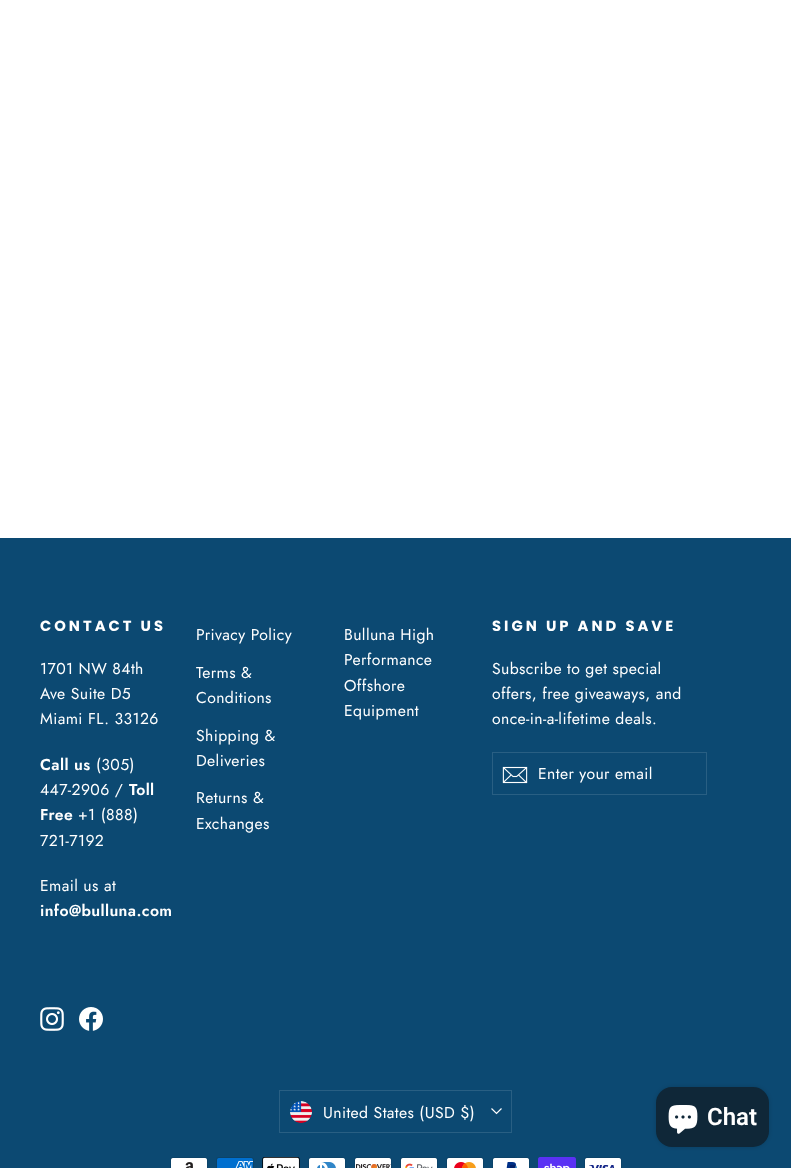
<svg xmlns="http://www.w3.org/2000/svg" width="791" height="1168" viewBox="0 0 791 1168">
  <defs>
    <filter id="blur1" x="-50%" y="-200%" width="200%" height="500%"><feGaussianBlur stdDeviation="2.5"/></filter>
  </defs>
  <rect width="100%" height="100%" fill="#ffffff"/>
  <rect x="0" y="538" width="791" height="630" fill="#0c4972"/>
  <text x="40" y="631" font-family="Poppins" font-size="14.75" font-weight="bold" letter-spacing="3" fill="#ffffff">CONTACT US</text>
  <text x="40" y="674" font-family="Jost" font-size="15.75" letter-spacing="0.4" fill="#ffffff">1701 NW 84th</text>
  <text x="40" y="699" font-family="Jost" font-size="15.75" letter-spacing="0.4" fill="#ffffff">Ave Suite D5</text>
  <text x="40" y="724" font-family="Jost" font-size="15.75" letter-spacing="0.4" fill="#ffffff">Miami FL. 33126</text>
  <text x="40" y="770" font-family="Jost" font-size="15.75" font-weight="600" letter-spacing="0.4" fill="#ffffff">Call us</text>
  <text x="96" y="770" font-family="Jost" font-size="15.75" letter-spacing="0.4" fill="#ffffff">(305)</text>
  <text x="40" y="795" font-family="Jost" font-size="15.75" letter-spacing="0.4" fill="#ffffff">447-2906 /</text>
  <text x="129" y="795" font-family="Jost" font-size="15.75" font-weight="600" letter-spacing="0.4" fill="#ffffff">Toll</text>
  <text x="40" y="820" font-family="Jost" font-size="15.75" font-weight="600" letter-spacing="0.4" fill="#ffffff">Free</text>
  <text x="78" y="820" font-family="Jost" font-size="15.75" letter-spacing="0.4" fill="#ffffff">+1 (888)</text>
  <text x="40" y="846" font-family="Jost" font-size="15.75" letter-spacing="0.4" fill="#ffffff">721-7192</text>
  <text x="40" y="891" font-family="Jost" font-size="15.75" letter-spacing="0.4" fill="#ffffff">Email us at</text>
  <text x="40" y="916" font-family="Jost" font-size="15.75" font-weight="600" letter-spacing="0.4" fill="#ffffff">info@bulluna.com</text>
  <text x="196" y="640" font-family="Jost" font-size="15.75" letter-spacing="0.4" fill="#ffffff">Privacy Policy</text>
  <text x="196" y="678" font-family="Jost" font-size="15.75" letter-spacing="0.4" fill="#ffffff">Terms &amp;</text>
  <text x="196" y="703" font-family="Jost" font-size="15.75" letter-spacing="0.4" fill="#ffffff">Conditions</text>
  <text x="196" y="741" font-family="Jost" font-size="15.75" letter-spacing="0.4" fill="#ffffff">Shipping &amp;</text>
  <text x="196" y="766" font-family="Jost" font-size="15.75" letter-spacing="0.4" fill="#ffffff">Deliveries</text>
  <text x="196" y="803" font-family="Jost" font-size="15.75" letter-spacing="0.4" fill="#ffffff">Returns &amp;</text>
  <text x="196" y="829" font-family="Jost" font-size="15.75" letter-spacing="0.4" fill="#ffffff">Exchanges</text>
  <text x="344" y="640" font-family="Jost" font-size="15.75" letter-spacing="0.4" fill="#ffffff">Bulluna High</text>
  <text x="344" y="665" font-family="Jost" font-size="15.75" letter-spacing="0.4" fill="#ffffff">Performance</text>
  <text x="344" y="691" font-family="Jost" font-size="15.75" letter-spacing="0.4" fill="#ffffff">Offshore</text>
  <text x="344" y="716" font-family="Jost" font-size="15.75" letter-spacing="0.4" fill="#ffffff">Equipment</text>
  <text x="492" y="631" font-family="Poppins" font-size="14.75" font-weight="bold" letter-spacing="3" fill="#ffffff">SIGN UP AND SAVE</text>
  <text x="492" y="674" font-family="Jost" font-size="15.75" letter-spacing="0.4" fill="#ffffff">Subscribe to get special</text>
  <text x="492" y="699" font-family="Jost" font-size="15.75" letter-spacing="0.4" fill="#ffffff">offers, free giveaways, and</text>
  <text x="492" y="724" font-family="Jost" font-size="15.75" letter-spacing="0.4" fill="#ffffff">once-in-a-lifetime deals.</text>
  <rect x="492.5" y="752.5" width="214" height="42" fill="none" stroke="#295f83"/>
  <image x="502" y="766" width="26" height="18" href="img1.png"/>
  <text x="538" y="779" font-family="Jost" font-size="15.75" letter-spacing="0.4" fill="#ffffff">Enter your email</text>
  <image x="40" y="1007" width="24" height="24" href="img2.png"/>
  <image x="79" y="1007" width="24" height="24" href="img3.png"/>
  <rect x="279.5" y="1090.5" width="232" height="42" fill="none" stroke="#295f83"/>
  <image x="290" y="1101" width="22" height="22" href="img4.png"/>
  <text x="323" y="1118" font-family="Jost" font-size="15.75" letter-spacing="0.4" fill="#ffffff">United States (USD $)</text>
  <path d="M491.5 1108.5L496.5 1113.5L501.5 1108.5" fill="none" stroke="#ffffff" stroke-width="1.2"/>
  <image x="170" y="1157" width="38" height="11" href="img5.png"/>
  <image x="216" y="1157" width="38" height="11" href="img6.png"/>
  <image x="262" y="1157" width="38" height="11" href="img7.png"/>
  <image x="308" y="1157" width="38" height="11" href="img8.png"/>
  <image x="354" y="1157" width="38" height="11" href="img9.png"/>
  <image x="400" y="1157" width="38" height="11" href="img10.png"/>
  <image x="446" y="1157" width="38" height="11" href="img11.png"/>
  <image x="492" y="1157" width="38" height="11" href="img12.png"/>
  <image x="538" y="1157" width="38" height="11" href="img13.png"/>
  <image x="584" y="1157" width="38" height="11" href="img14.png"/>
  <rect x="656" y="1087" width="113" height="60" rx="16" fill="#000000" fill-opacity="0.15" filter="url(#blur1)"/>
  <rect x="656" y="1087" width="113" height="60" rx="16" fill="#0f2738"/>
  <image x="668" y="1105" width="30" height="29" href="img15.png"/>
  <text x="707" y="1125" font-family="Roboto" font-size="24" font-weight="600" fill="#ffffff">Chat</text>
</svg>
